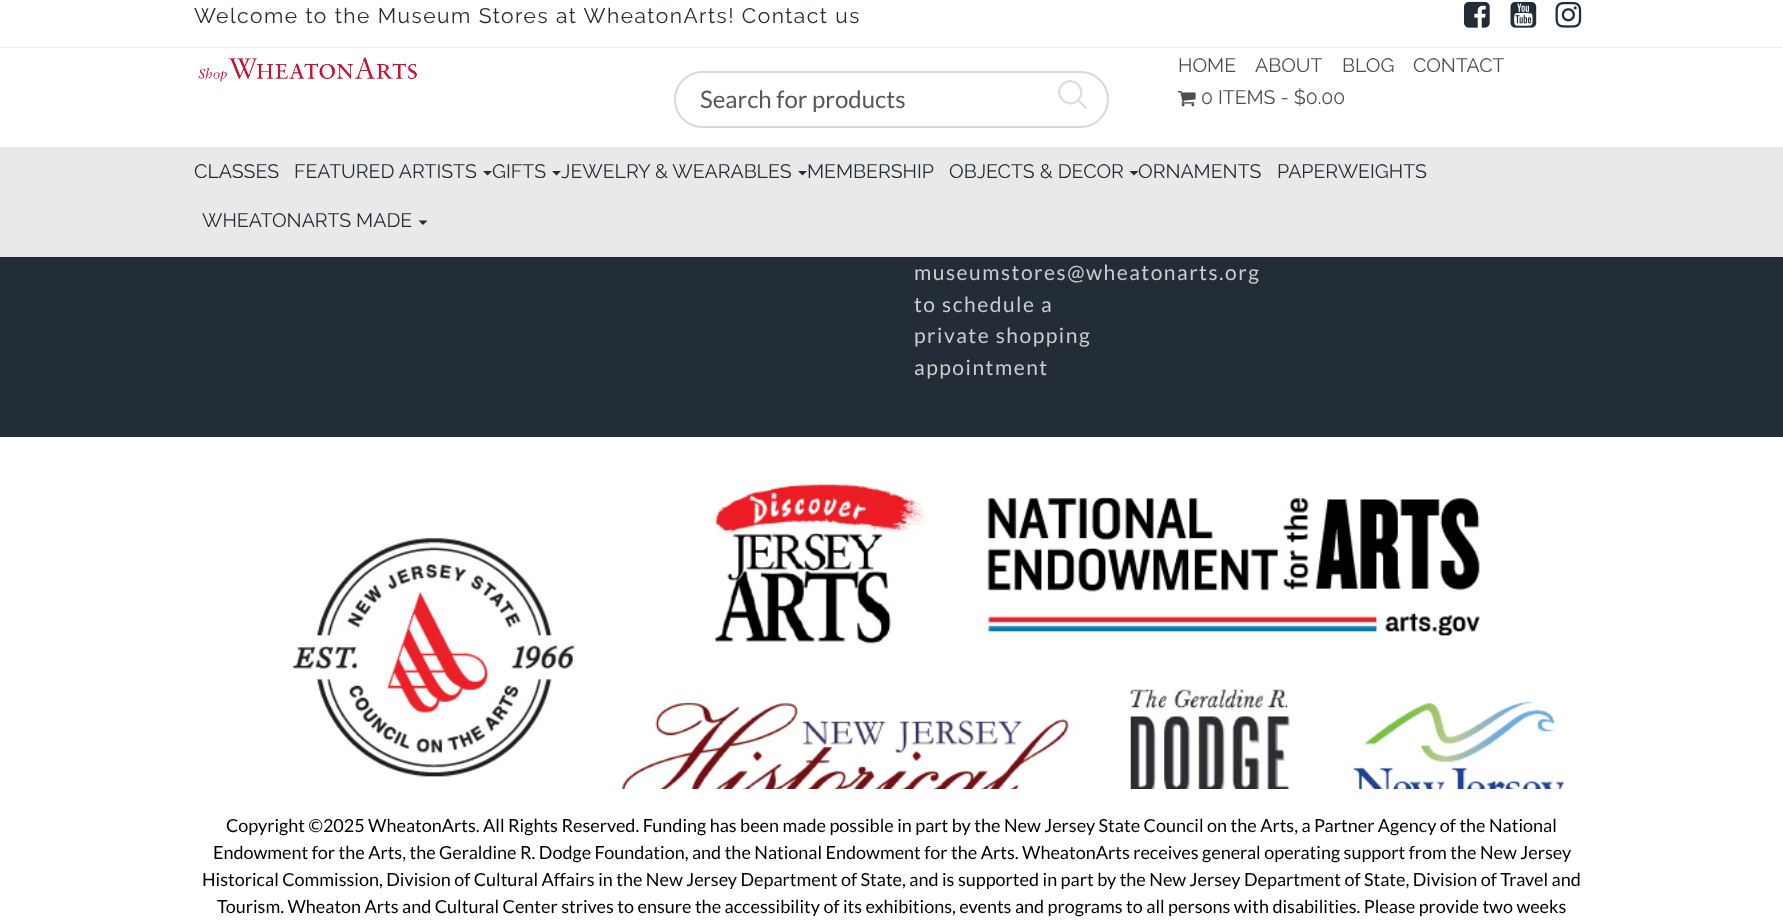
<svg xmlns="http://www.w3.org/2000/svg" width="1783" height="920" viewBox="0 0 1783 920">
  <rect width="100%" height="100%" fill="#232d37"/>
  <rect x="0" y="0" width="1783" height="47" fill="#ffffff"/>
  <rect x="0" y="47" width="1783" height="1" fill="#ededed"/>
  <text x="194" y="23" font-family="Raleway" font-size="21" letter-spacing="1.5" fill="#232d37">Welcome to the Museum Stores at WheatonArts! Contact us</text>
  <image x="1464" y="1" width="26" height="27" href="img1.png"/>
  <image x="1510" y="1" width="27" height="27" href="img2.png"/>
  <image x="1555" y="1" width="27" height="27" href="img3.png"/>
  <rect x="0" y="48" width="1783" height="99" fill="#ffffff"/>
  <image x="198" y="57" width="219" height="25" href="img4.png"/>
  <rect x="675" y="72" width="433" height="55" rx="27.5" fill="none" stroke="#d8d8d8" stroke-width="2"/>
  <text x="700" y="108" font-family="Lato" font-size="24" fill="#575757">Search for products</text>
  <path d="M1086 108L1078 100M1078 100C1088.5 90 1072.5 74 1062.5 84.5C1052 94.5 1068 110.5 1078 100Z" fill="none" stroke="#dcdcdc" stroke-width="2.2" stroke-linecap="round" stroke-linejoin="round"/>
  <text x="1178" y="72" font-family="Raleway" font-size="19.5" fill="#4d4d4d">HOME</text>
  <text x="1255" y="72" font-family="Raleway" font-size="19.5" fill="#4d4d4d">ABOUT</text>
  <text x="1342" y="72" font-family="Raleway" font-size="19.5" fill="#4d4d4d">BLOG</text>
  <text x="1413" y="72" font-family="Raleway" font-size="19.5" fill="#4d4d4d">CONTACT</text>
  <image x="1177" y="91" width="19" height="16" href="img5.png"/>
  <text x="1201" y="104" font-family="Raleway" font-size="19.5" fill="#4d4d4d">0 ITEMS - $0.00</text>
  <rect x="0" y="147" width="1783" height="110" fill="#e9e9e9"/>
  <text x="194" y="178" font-family="Raleway" font-size="19.5" fill="#232d37">CLASSES</text>
  <text x="294" y="178" font-family="Raleway" font-size="19.5" fill="#232d37">FEATURED ARTISTS</text>
  <path d="M483 171H492L487.5 175.5Z" fill="#232d37"/>
  <text x="492" y="178" font-family="Raleway" font-size="19.5" fill="#232d37">GIFTS</text>
  <path d="M552 171H561L556.5 175.5Z" fill="#232d37"/>
  <text x="561" y="178" font-family="Raleway" font-size="19.5" fill="#232d37">JEWELRY &amp; WEARABLES</text>
  <path d="M798 171H807L802.5 175.5Z" fill="#232d37"/>
  <text x="807" y="178" font-family="Raleway" font-size="19.5" fill="#232d37">MEMBERSHIP</text>
  <text x="949" y="178" font-family="Raleway" font-size="19.5" fill="#232d37">OBJECTS &amp; DECOR</text>
  <path d="M1129.5 171H1138.5L1134 175.5Z" fill="#232d37"/>
  <text x="1138" y="178" font-family="Raleway" font-size="19.5" fill="#232d37">ORNAMENTS</text>
  <text x="1277" y="178" font-family="Raleway" font-size="19.5" fill="#232d37">PAPERWEIGHTS</text>
  <text x="202" y="227" font-family="Raleway" font-size="19.5" fill="#232d37">WHEATONARTS MADE</text>
  <path d="M418.5 220.5H427.5L423 225Z" fill="#232d37"/>
  <text x="914" y="280" font-family="Lato" font-size="21" letter-spacing="1.5" fill="#cccccc">museumstores@wheatonarts.org</text>
  <text x="914" y="312" font-family="Lato" font-size="21" letter-spacing="1.5" fill="#cccccc">to schedule a</text>
  <text x="914" y="343" font-family="Lato" font-size="21" letter-spacing="1.5" fill="#cccccc">private shopping</text>
  <text x="914" y="375" font-family="Lato" font-size="21" letter-spacing="1.5" fill="#cccccc">appointment</text>
  <rect x="0" y="437" width="1783" height="483" fill="#ffffff"/>
  <image x="292" y="484" width="1273" height="305" href="img6.png"/>
  <text x="226" y="832" font-family="Lato" font-size="18" fill="#000000">Copyright ©2025 WheatonArts. All Rights Reserved. Funding has been made possible in part by the New Jersey State Council on the Arts, a Partner Agency of the National</text>
  <text x="213" y="859" font-family="Lato" font-size="18" fill="#000000">Endowment for the Arts, the Geraldine R. Dodge Foundation, and the National Endowment for the Arts. WheatonArts receives general operating support from the New Jersey</text>
  <text x="202" y="886" font-family="Lato" font-size="18" fill="#000000">Historical Commission, Division of Cultural Affairs in the New Jersey Department of State, and is supported in part by the New Jersey Department of State, Division of Travel and</text>
  <text x="217" y="913" font-family="Lato" font-size="18" fill="#000000">Tourism. Wheaton Arts and Cultural Center strives to ensure the accessibility of its exhibitions, events and programs to all persons with disabilities. Please provide two weeks</text>
</svg>
